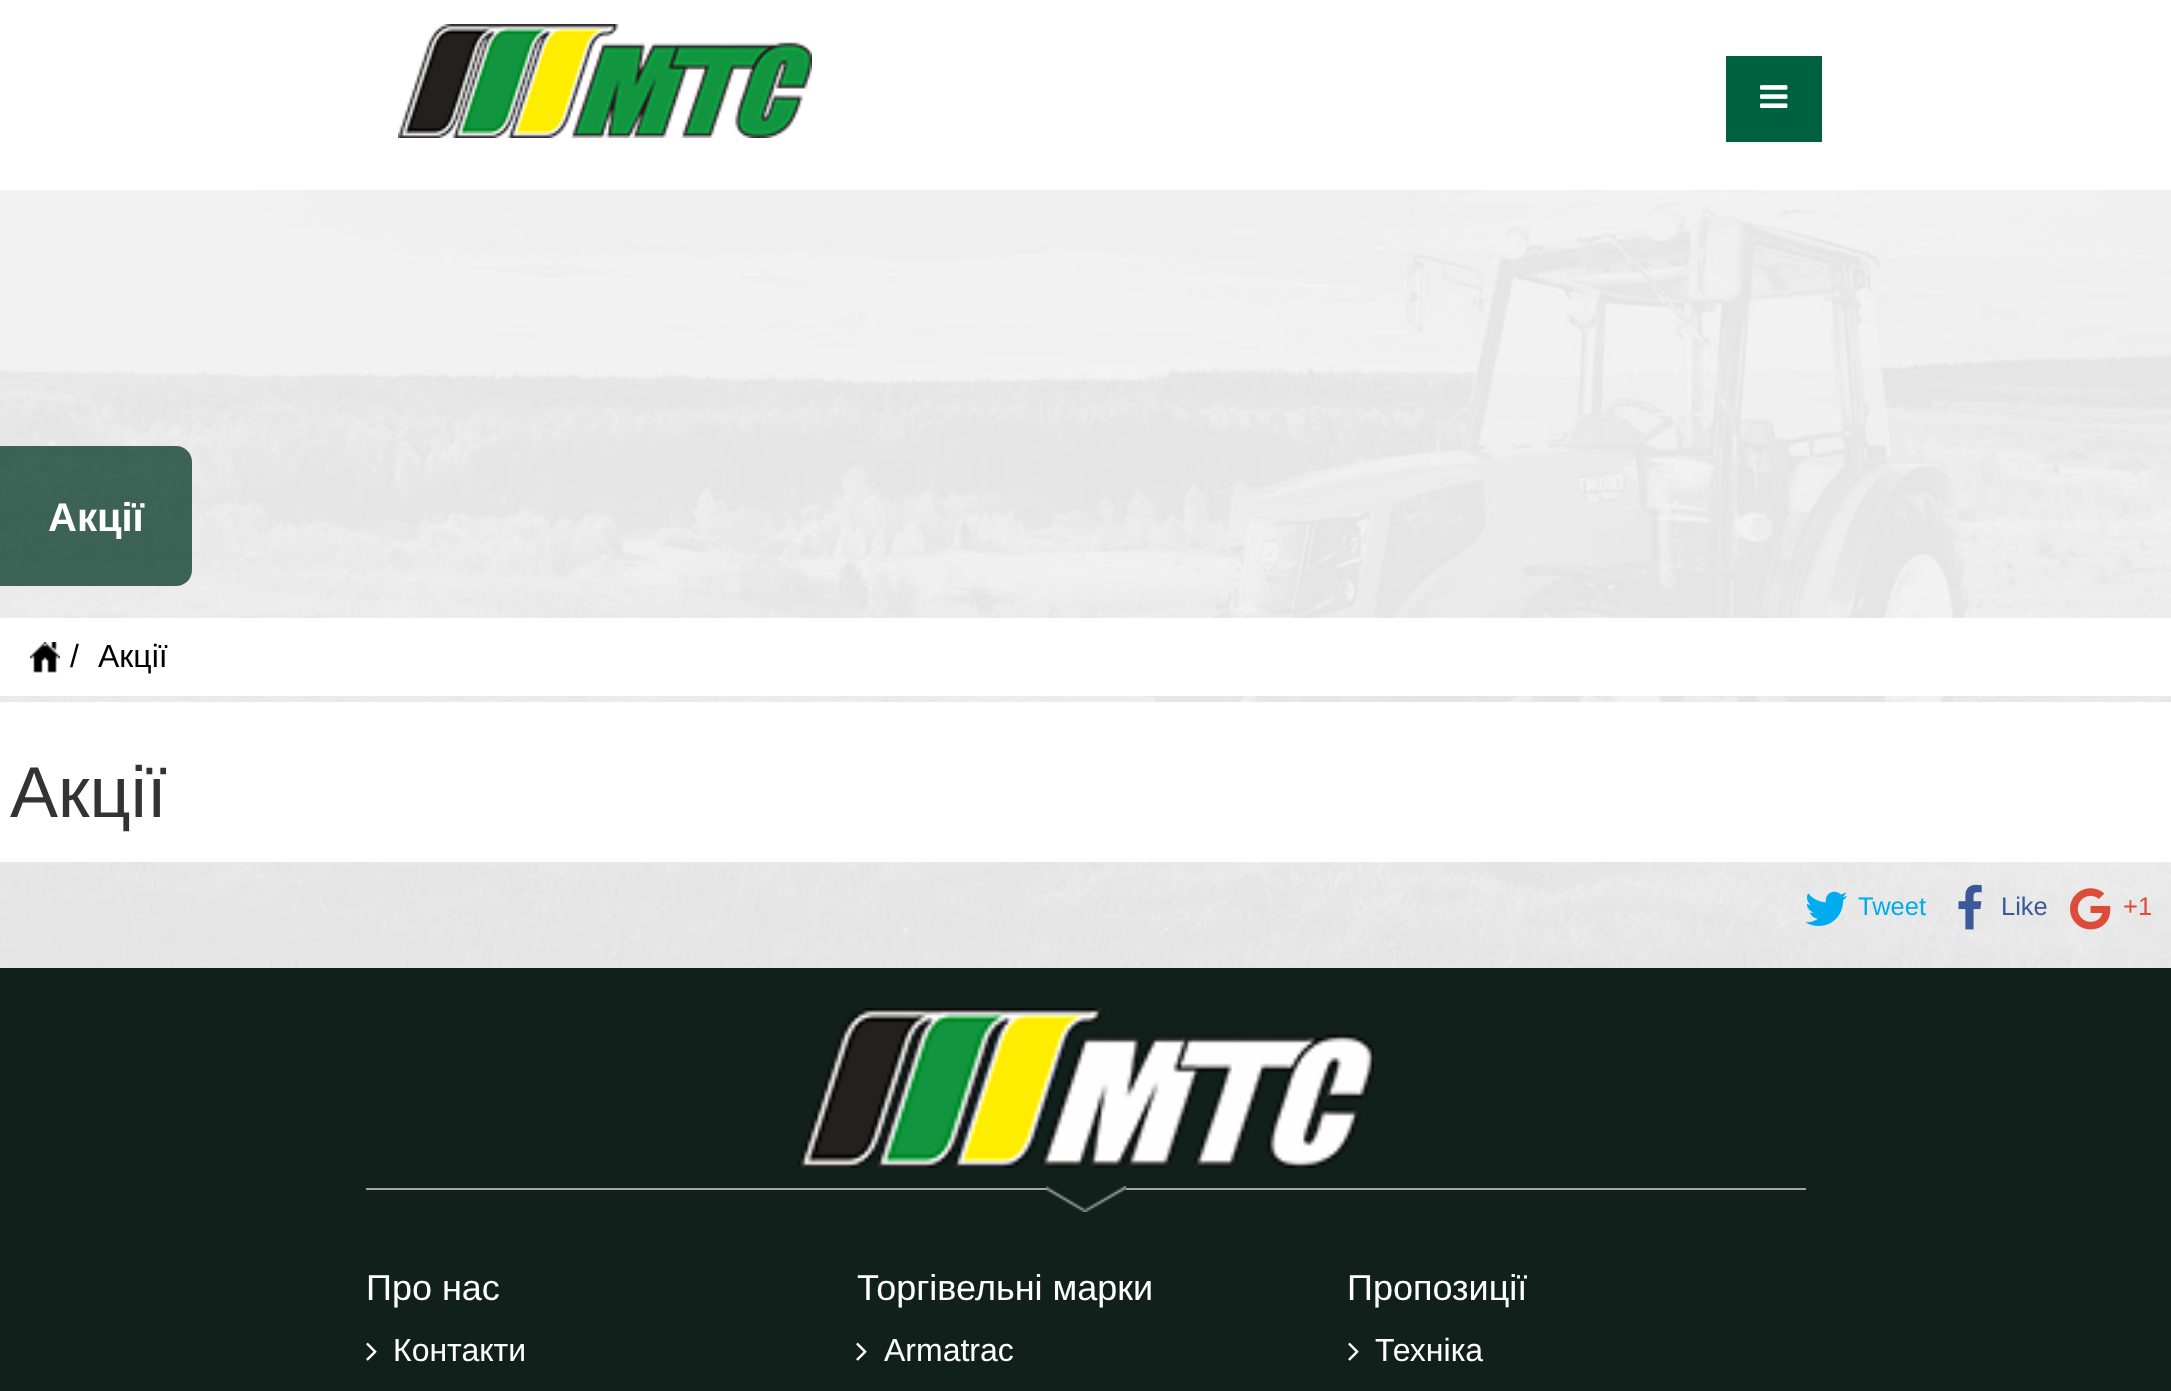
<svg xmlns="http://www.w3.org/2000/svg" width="2171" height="1391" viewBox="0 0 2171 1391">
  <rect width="100%" height="100%" fill="#ffffff"/>
  <image x="398" y="24" width="414" height="114" href="img1.png"/>
  <rect x="1726" y="56" width="96" height="86" fill="#006140"/>
  <image x="1760" y="85" width="28" height="23" href="img2.png"/>
  <image x="0" y="190" width="2171" height="778" href="img3.png"/>
  <path d="M0 446H176C185 446 192 453 192 462V570C192 579 185 586 176 586H0Z" fill="#013524" fill-opacity="0.75"/>
  <text x="48" y="531" font-family="Liberation Sans" font-size="40" font-weight="bold" fill="#ffffff">Акції</text>
  <rect x="0" y="618" width="2171" height="78" fill="#ffffff"/>
  <image x="30" y="642" width="30" height="31" href="img4.png"/>
  <text x="70" y="667" font-family="Liberation Sans" font-size="32" fill="#000000">/</text>
  <text x="98" y="667" font-family="Liberation Sans" font-size="32" fill="#000000">Акції</text>
  <rect x="0" y="702" width="2171" height="160" fill="#ffffff"/>
  <text x="10" y="817" font-family="Liberation Sans" font-size="72" fill="#333333">Акції</text>
  <image x="1805" y="891" width="43" height="35" href="img5.png"/>
  <text x="1858" y="915" font-family="Liberation Sans" font-size="25.5" fill="#00aced">Tweet</text>
  <image x="1958" y="884" width="24" height="46" href="img6.png"/>
  <text x="2001" y="915" font-family="Liberation Sans" font-size="25.5" fill="#3b5998">Like</text>
  <image x="2070" y="888" width="41" height="42" href="img7.png"/>
  <text x="2123" y="915" font-family="Liberation Sans" font-size="25.5" fill="#dd4b39">+1</text>
  <rect x="0" y="968" width="2171" height="423" fill="#11201b"/>
  <image x="798" y="1008" width="576" height="160" href="img8.png"/>
  <rect x="366" y="1188" width="1440" height="2" fill="#a6a6a6"/>
  <rect x="1046" y="1188" width="80" height="2" fill="#11201b"/>
  <image x="1046" y="1186" width="80" height="26" href="img9.png"/>
  <text x="366" y="1300" font-family="Liberation Sans" font-size="36" fill="#ffffff">Про нас</text>
  <image x="366" y="1342" width="11" height="19" href="img10.png"/>
  <text x="393" y="1361" font-family="Liberation Sans" font-size="32" fill="#ffffff">Контакти</text>
  <text x="857" y="1300" font-family="Liberation Sans" font-size="36" fill="#ffffff">Торгівельні марки</text>
  <image x="856" y="1342" width="11" height="19" href="img10.png"/>
  <text x="884" y="1361" font-family="Liberation Sans" font-size="32" fill="#ffffff">Armatrac</text>
  <text x="1347" y="1300" font-family="Liberation Sans" font-size="36" fill="#ffffff">Пропозиції</text>
  <image x="1348" y="1342" width="11" height="19" href="img10.png"/>
  <text x="1375" y="1361" font-family="Liberation Sans" font-size="32" fill="#ffffff">Техніка</text>
</svg>
